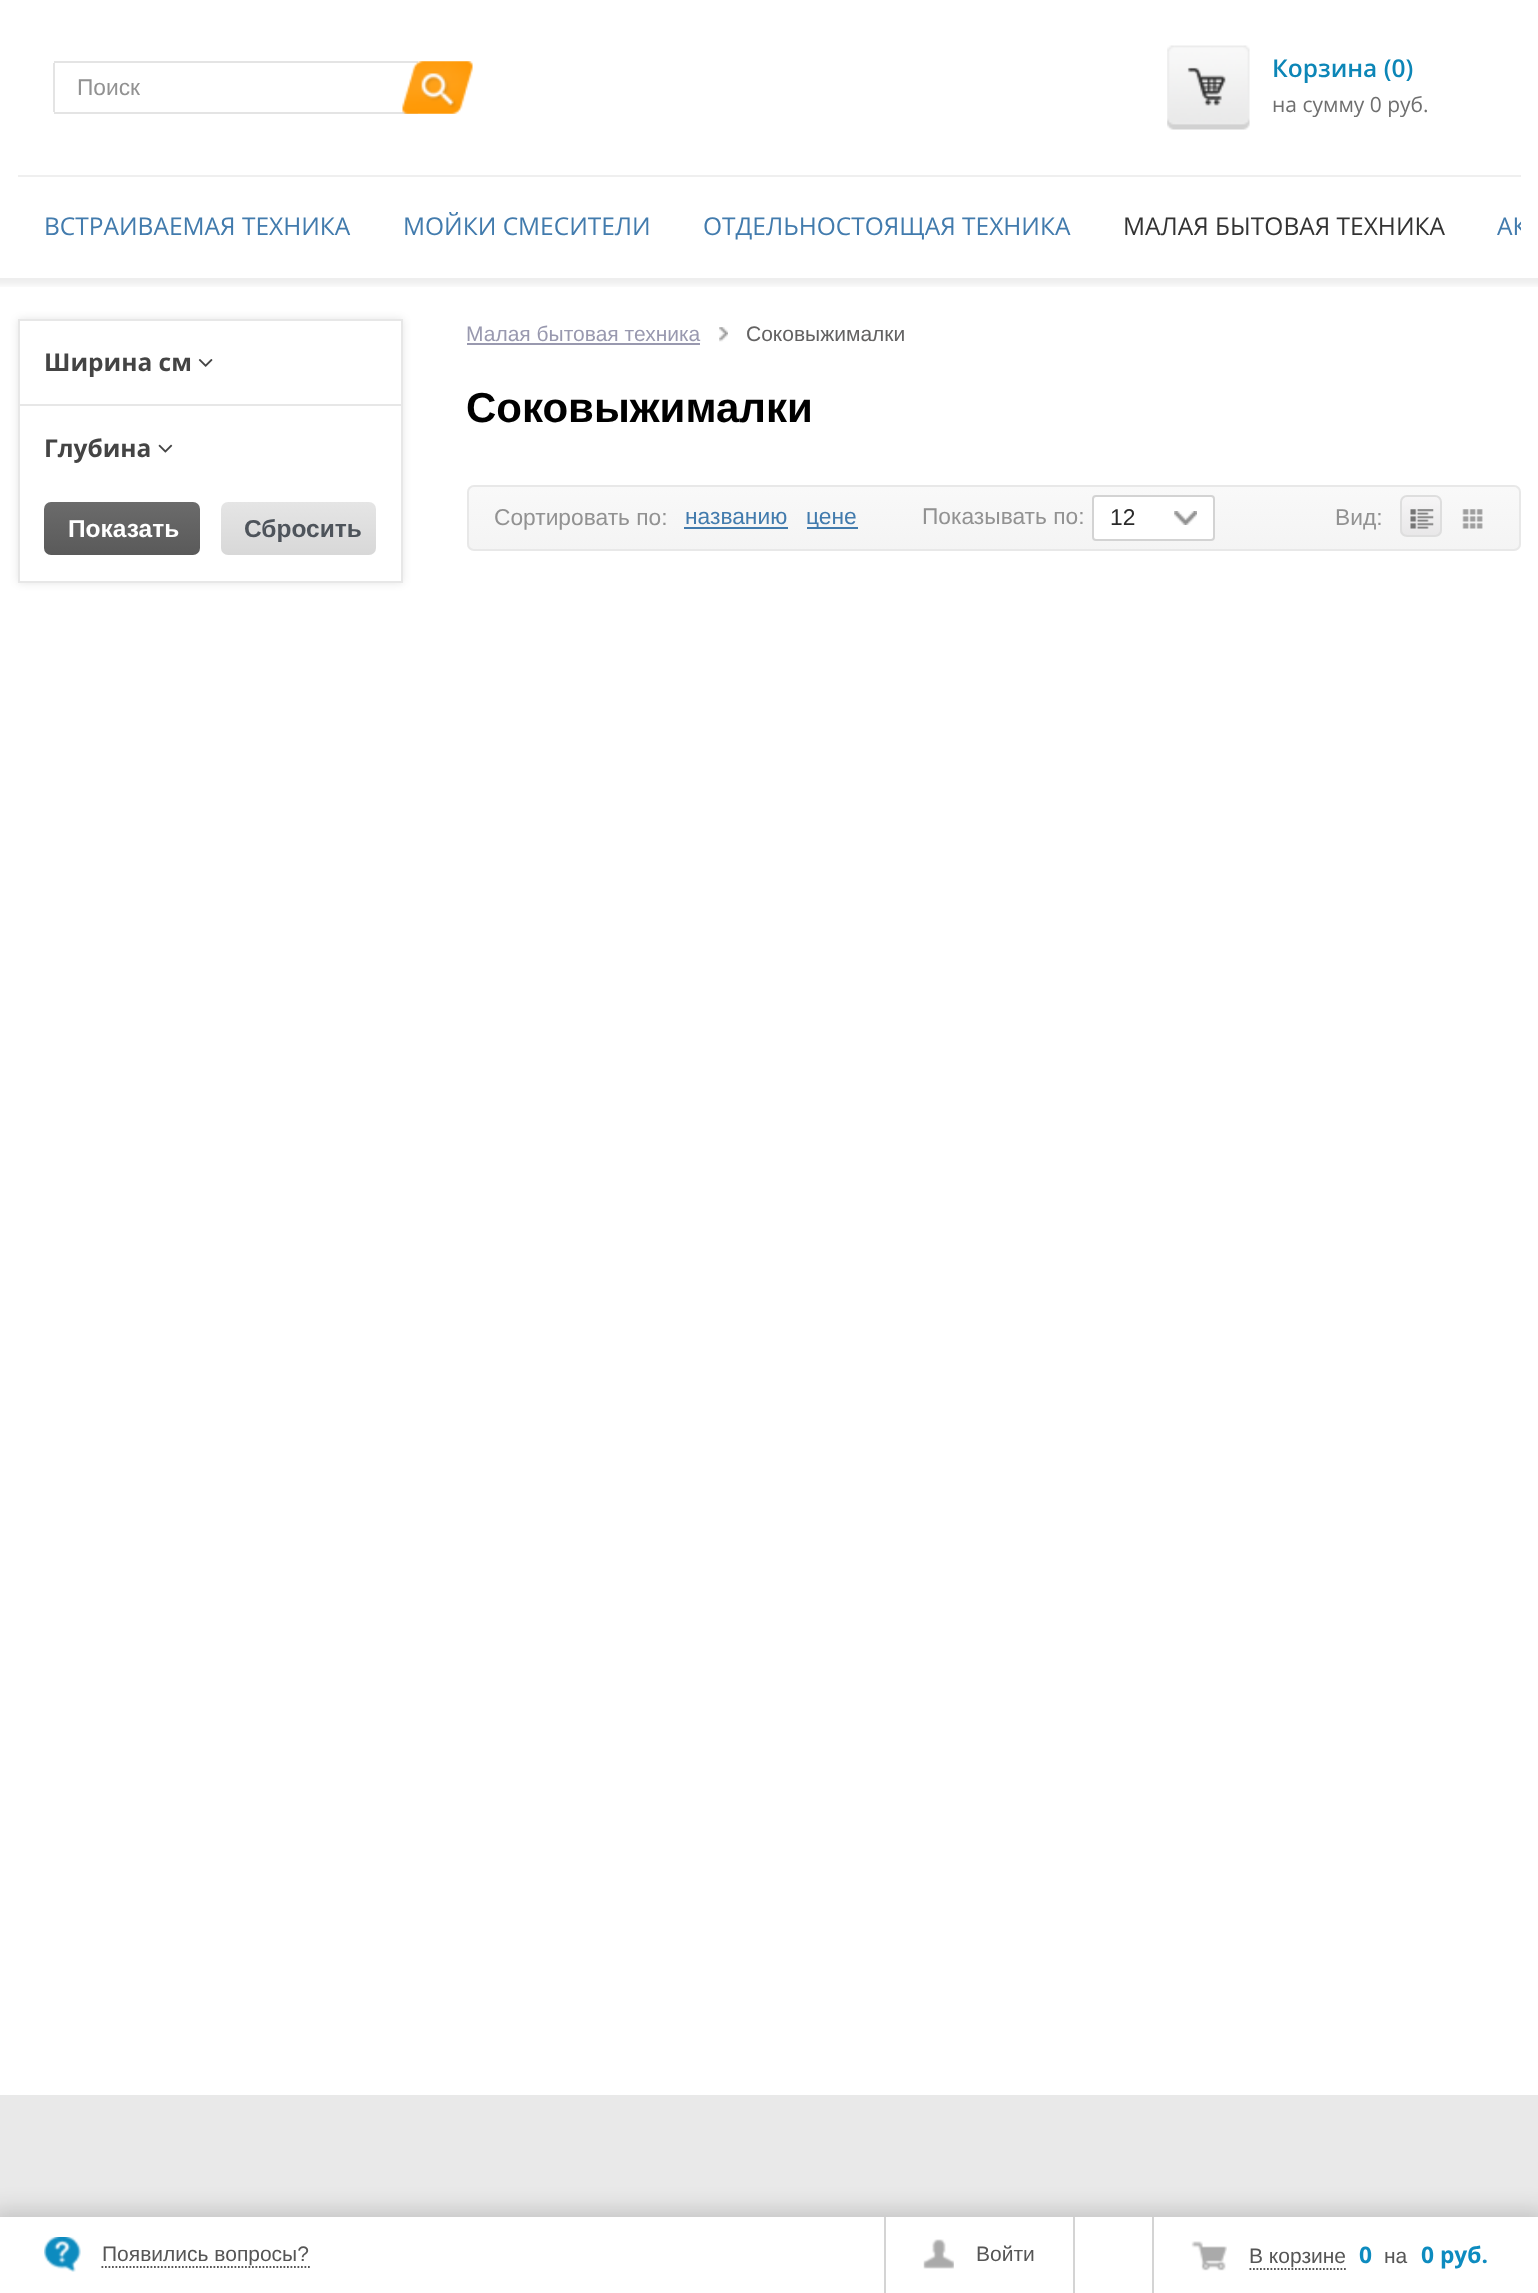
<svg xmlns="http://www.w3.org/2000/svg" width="1538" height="2293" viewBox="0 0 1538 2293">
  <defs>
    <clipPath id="clip1"><rect x="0" y="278" width="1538" height="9"/></clipPath>
    <filter id="blur1" x="-50%" y="-200%" width="200%" height="500%"><feGaussianBlur stdDeviation="3.5"/></filter>
    <clipPath id="clip2"><rect x="1472" y="177" width="49" height="101"/></clipPath>
    <clipPath id="clip3"><path d="M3 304H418V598H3ZM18 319H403V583H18Z" clip-rule="evenodd"/></clipPath>
    <filter id="blur2" x="-50%" y="-200%" width="200%" height="500%"><feGaussianBlur stdDeviation="4.5"/></filter>
    <linearGradient id="g1" gradientUnits="userSpaceOnUse" x1="122" y1="502" x2="122" y2="607"><stop offset="0" stop-color="#6b6b6b"/><stop offset="1" stop-color="#494949"/></linearGradient>
    <linearGradient id="g2" gradientUnits="userSpaceOnUse" x1="298" y1="502" x2="298" y2="607"><stop offset="0" stop-color="#e5e5e5"/><stop offset="1" stop-color="#cbcbcb"/></linearGradient>
    <clipPath id="clip4"><rect x="467" y="485" width="1054" height="66" rx="7"/></clipPath>
    <linearGradient id="g3" gradientUnits="userSpaceOnUse" x1="994" y1="486" x2="994" y2="550"><stop offset="0" stop-color="#f9f9f9"/><stop offset="1" stop-color="#f4f4f4"/></linearGradient>
    <clipPath id="clip5"><rect x="1400" y="495" width="42" height="42" rx="7"/></clipPath>
    <linearGradient id="g4" gradientUnits="userSpaceOnUse" x1="1421" y1="497" x2="1421" y2="536"><stop offset="0" stop-color="#f6f5f6"/><stop offset="1" stop-color="#e8e7e8"/></linearGradient>
    <filter id="blur3" x="-50%" y="-200%" width="200%" height="500%"><feGaussianBlur stdDeviation="10.5"/></filter>
  </defs>
  <rect width="100%" height="100%" fill="#ffffff"/>
  <rect x="54" y="61" width="364" height="2" fill="#e4e4e4"/>
  <rect x="54" y="112" width="364" height="2" fill="#e4e4e4"/>
  <rect x="53" y="63" width="2" height="49" fill="#e4e4e4"/>
  <text x="77" y="95" font-family="Liberation Sans" font-size="22.75" fill="#929292">Поиск</text>
  <image x="402" y="61" width="71" height="53" href="img1.png"/>
  <image x="1167" y="45" width="83" height="85" href="img2.png"/>
  <text x="1272" y="77" font-family="Open Sans" font-size="24.5" font-weight="600" fill="#0c86b7">Корзина (0)</text>
  <text x="1272" y="112" font-family="Open Sans" font-size="21" fill="#6f6f6f">на сумму 0 руб.</text>
  <g clip-path="url(#clip1)">
    <rect x="-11" y="182" width="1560" height="103" fill="#000000" fill-opacity="0.07" filter="url(#blur1)"/>
  </g>
  <rect x="18" y="175" width="1503" height="2" fill="#efefef"/>
  <text x="44" y="235" font-family="Open Sans" font-size="24.5" fill="#427bad">ВСТРАИВАЕМАЯ ТЕХНИКА</text>
  <text x="403" y="235" font-family="Open Sans" font-size="24.5" fill="#427bad">МОЙКИ СМЕСИТЕЛИ</text>
  <text x="703" y="235" font-family="Open Sans" font-size="24.5" fill="#427bad">ОТДЕЛЬНОСТОЯЩАЯ ТЕХНИКА</text>
  <text x="1123" y="235" font-family="Open Sans" font-size="24.5" fill="#333333">МАЛАЯ БЫТОВАЯ ТЕХНИКА</text>
  <g clip-path="url(#clip2)">
    <text x="1497" y="235" font-family="Open Sans" font-size="24.5" fill="#427bad">АК</text>
  </g>
  <g clip-path="url(#clip3)">
    <rect x="18" y="319" width="385" height="264" fill="#050502" fill-opacity="0.1" filter="url(#blur2)"/>
  </g>
  <rect x="19" y="320" width="383" height="262" fill="none" stroke="#e7e7e7" stroke-width="2"/>
  <text x="44" y="371" font-family="Open Sans" font-size="24.5" font-weight="bold" fill="#444444">Ширина см</text>
  <image x="198" y="359" width="15" height="8" href="img3.png"/>
  <rect x="19" y="404" width="382" height="2" fill="#e7e7e7"/>
  <text x="44" y="457" font-family="Open Sans" font-size="24.5" font-weight="bold" fill="#444444">Глубина</text>
  <image x="158" y="444" width="15" height="9" href="img4.png"/>
  <rect x="44" y="502" width="156" height="53" rx="7" fill="url(#g1)"/>
  <text x="68" y="537" font-family="Liberation Sans" font-size="24.5" font-weight="bold" fill="#ffffff">Показать</text>
  <rect x="221" y="502" width="155" height="53" rx="7" fill="url(#g2)"/>
  <text x="244" y="537" font-family="Liberation Sans" font-size="24.5" font-weight="bold" fill="#4e545b">Сбросить</text>
  <text x="466" y="341" font-family="Liberation Sans" font-size="21" fill="#9999af">Малая бытовая техника</text>
  <rect x="467" y="343" width="233" height="2" fill="#9999af"/>
  <image x="719" y="327" width="9" height="15" href="img5.png"/>
  <text x="746" y="341" font-family="Liberation Sans" font-size="21" fill="#636262">Соковыжималки</text>
  <text x="466" y="422" font-family="Liberation Sans" font-size="42" font-weight="bold" fill="#000000">Соковыжималки</text>
  <g clip-path="url(#clip4)">
    <rect x="467" y="487" width="1054" height="63" fill="url(#g3)"/>
  </g>
  <rect x="468" y="486" width="1052" height="64" rx="6" fill="none" stroke="#e8e8e8" stroke-width="2"/>
  <text x="494" y="525" font-family="Liberation Sans" font-size="22.75" fill="#929292">Сортировать по:</text>
  <text x="685" y="524" font-family="Liberation Sans" font-size="22.75" fill="#427bad">названию</text>
  <rect x="684" y="527" width="104" height="2" fill="#427bad"/>
  <rect x="807" y="527" width="51" height="2" fill="#427bad"/>
  <text x="806" y="524" font-family="Liberation Sans" font-size="22.75" fill="#427bad">цене</text>
  <text x="922" y="524" font-family="Liberation Sans" font-size="22.75" fill="#929292">Показывать по:</text>
  <rect x="1093" y="496" width="121" height="44" rx="3" fill="#ffffff" stroke="#d3d3d3" stroke-width="2"/>
  <text x="1110" y="525" font-family="Liberation Sans" font-size="22.75" fill="#2a2a2a">12</text>
  <image x="1174" y="511" width="23" height="14" href="img6.png"/>
  <text x="1335" y="525" font-family="Liberation Sans" font-size="22.75" fill="#929292">Вид:</text>
  <g clip-path="url(#clip5)">
    <rect x="1400" y="497" width="42" height="39" fill="url(#g4)"/>
  </g>
  <rect x="1401" y="496" width="40" height="40" rx="6" fill="none" stroke="#dedede" stroke-width="2"/>
  <image x="1410" y="509" width="24" height="20" href="img7.png"/>
  <image x="1462" y="509" width="21" height="20" href="img8.png"/>
  <rect x="0" y="2095" width="1538" height="122" fill="#e9e9e9"/>
  <rect x="-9" y="2209" width="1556" height="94" fill="#000000" fill-opacity="0.15" filter="url(#blur3)"/>
  <rect x="0" y="2217" width="1538" height="76" fill="#ffffff"/>
  <image x="44" y="2237" width="37" height="35" href="img9.png"/>
  <text x="102" y="2261" font-family="Liberation Sans" font-size="21" fill="#565656">Появились вопросы?</text>
  <path d="M101.5 2267H310" fill="none" stroke="#565656" stroke-width="1.8" stroke-dasharray="1.75 1.75"/>
  <rect x="884" y="2217" width="2" height="76" fill="#d4d4d4"/>
  <image x="923" y="2239" width="31" height="30" href="img10.png"/>
  <text x="976" y="2261" font-family="Liberation Sans" font-size="21" fill="#565656">Войти</text>
  <rect x="1073" y="2217" width="2" height="76" fill="#d4d4d4"/>
  <rect x="1152" y="2217" width="2" height="76" fill="#d4d4d4"/>
  <image x="1191" y="2241" width="36" height="30" href="img11.png"/>
  <text x="1249" y="2263" font-family="Liberation Sans" font-size="21" fill="#565656">В корзине</text>
  <path d="M1249.5 2269H1346" fill="none" stroke="#565656" stroke-width="1.8" stroke-dasharray="1.75 1.75"/>
  <text x="1359" y="2263" font-family="Open Sans" font-size="22.75" font-weight="bold" fill="#0d8bbf">0</text>
  <text x="1384" y="2263" font-family="Liberation Sans" font-size="21" fill="#565656">на</text>
  <text x="1421" y="2263" font-family="Open Sans" font-size="22.75" font-weight="bold" fill="#0d8bbf">0 руб.</text>
</svg>
